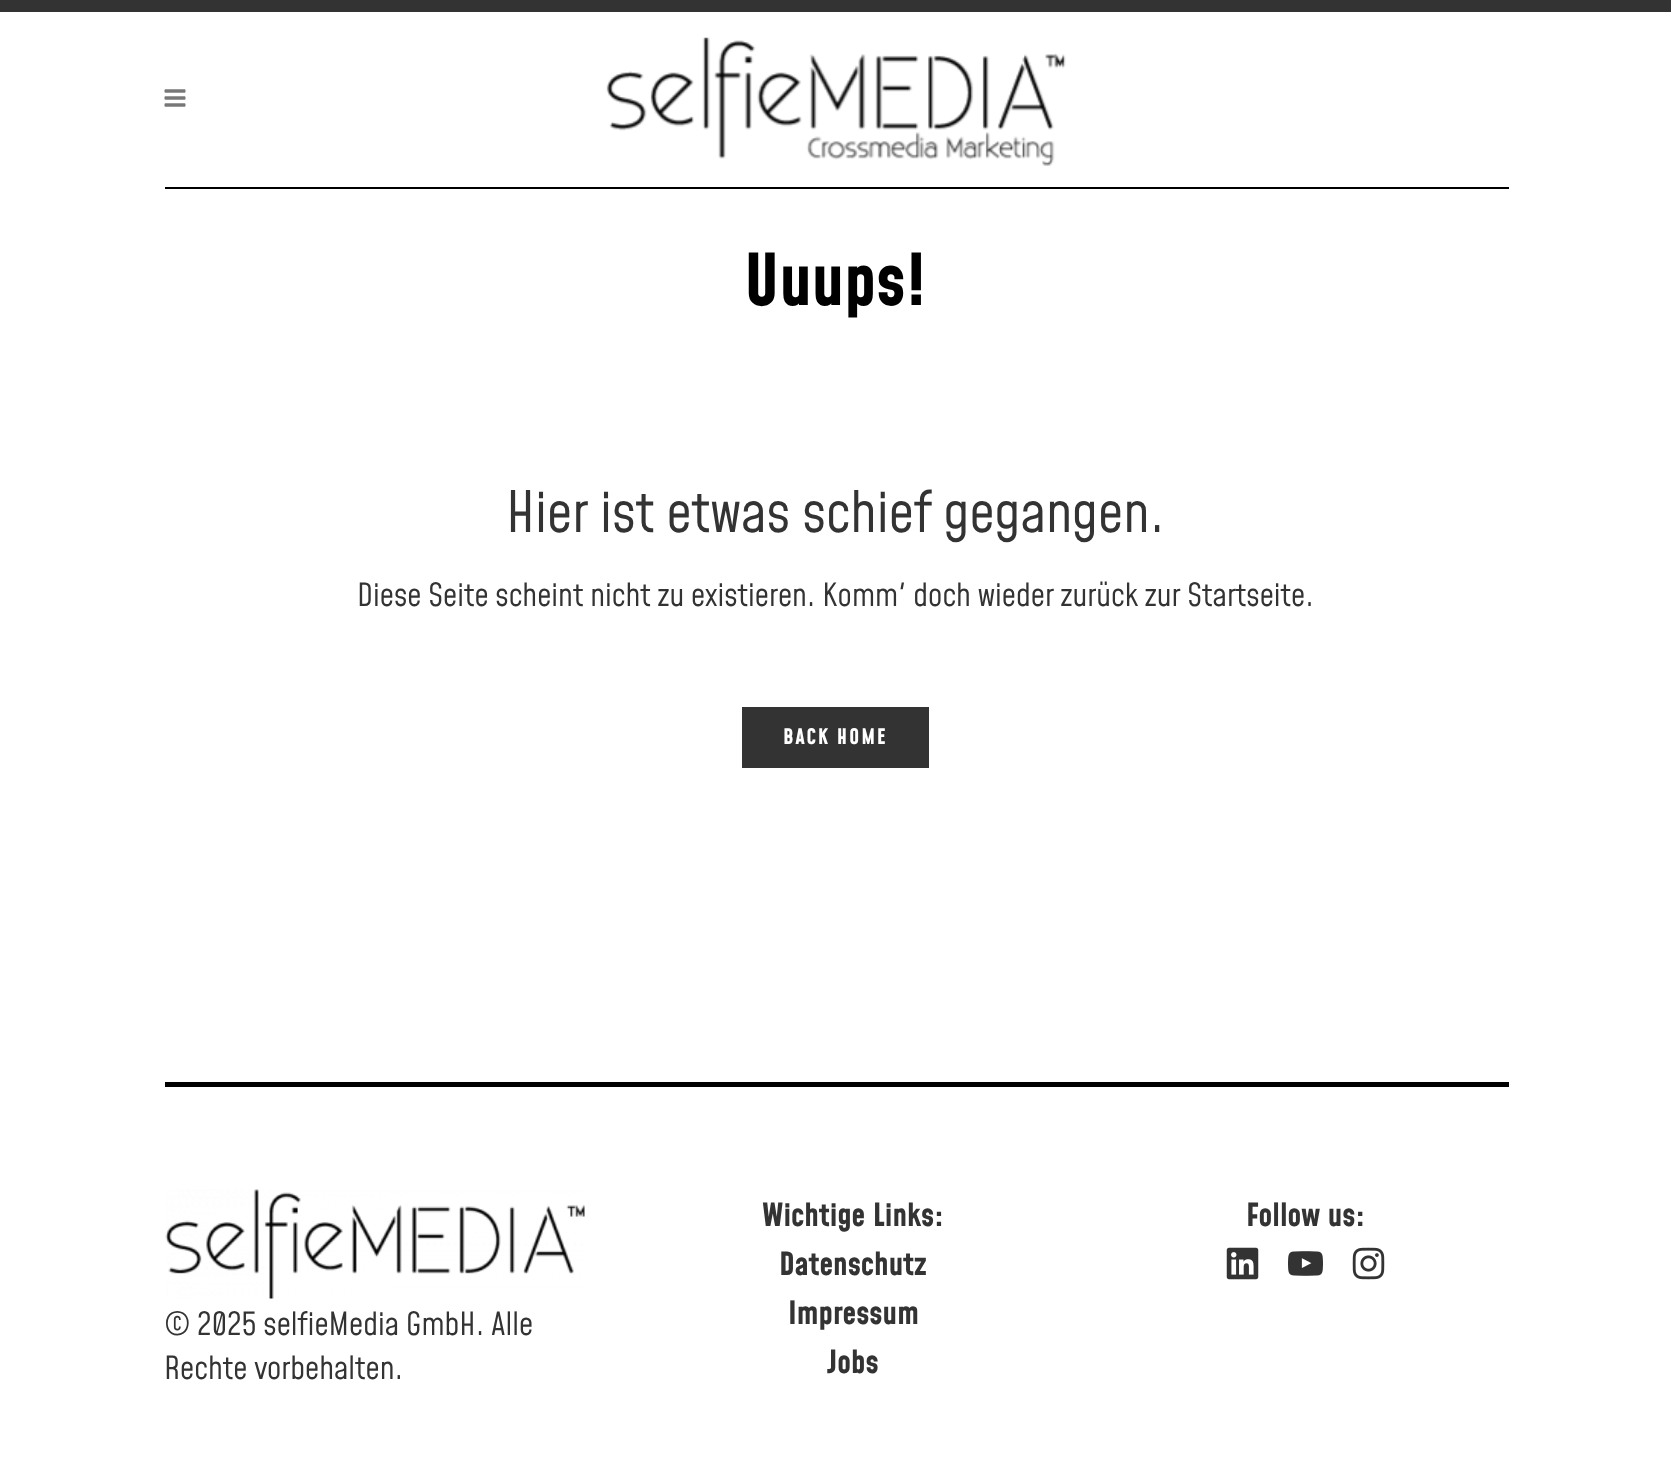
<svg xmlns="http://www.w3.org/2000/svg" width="1671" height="1483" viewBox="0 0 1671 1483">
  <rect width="100%" height="100%" fill="#ffffff"/>
  <rect x="0" y="0" width="1671" height="12" fill="#333333"/>
  <rect x="165" y="187" width="1344" height="2" fill="#000000"/>
  <image x="164" y="89" width="22" height="18" href="img1.png"/>
  <image x="606" y="37" width="460" height="129" href="img2.png"/>
  <text x="744" y="305" font-family="Mohave" font-size="70" font-weight="bold" fill="#000000">Uuups!</text>
  <text x="506" y="532" font-family="Mohave" font-size="56" fill="#333333">Hier ist etwas schief gegangen.</text>
  <text x="357" y="606" font-family="Mohave" font-size="31.5" fill="#333333">Diese Seite scheint nicht zu existieren. Komm' doch wieder zurück zur Startseite.</text>
  <rect x="742" y="707" width="187" height="61" fill="#333333"/>
  <text x="783" y="744" font-family="Mohave" font-size="21" font-weight="bold" letter-spacing="1.75" fill="#ffffff">BACK HOME</text>
  <rect x="165" y="1082" width="1344" height="5" fill="#000000"/>
  <text x="762" y="1226" font-family="Mohave" font-size="31.5" font-weight="bold" fill="#333333">Wichtige Links:</text>
  <text x="779" y="1275" font-family="Mohave" font-size="31.5" font-weight="bold" fill="#333333">Datenschutz</text>
  <text x="788" y="1324" font-family="Mohave" font-size="31.5" font-weight="bold" fill="#333333">Impressum</text>
  <text x="827" y="1373" font-family="Mohave" font-size="31.5" font-weight="bold" fill="#333333">Jobs</text>
  <text x="1246" y="1226" font-family="Mohave" font-size="31.5" font-weight="bold" fill="#333333">Follow us:</text>
  <image x="1226" y="1247" width="33" height="33" href="img3.png"/>
  <image x="1288" y="1251" width="35" height="25" href="img4.png"/>
  <image x="1352" y="1247" width="33" height="33" href="img5.png"/>
  <image x="165" y="1189" width="420" height="110" href="img6.png"/>
  <text x="164" y="1335" font-family="Mohave" font-size="31.5" fill="#333333">© 2025 selfieMedia GmbH. Alle</text>
  <text x="164" y="1379" font-family="Mohave" font-size="31.5" fill="#333333">Rechte vorbehalten.</text>
</svg>
